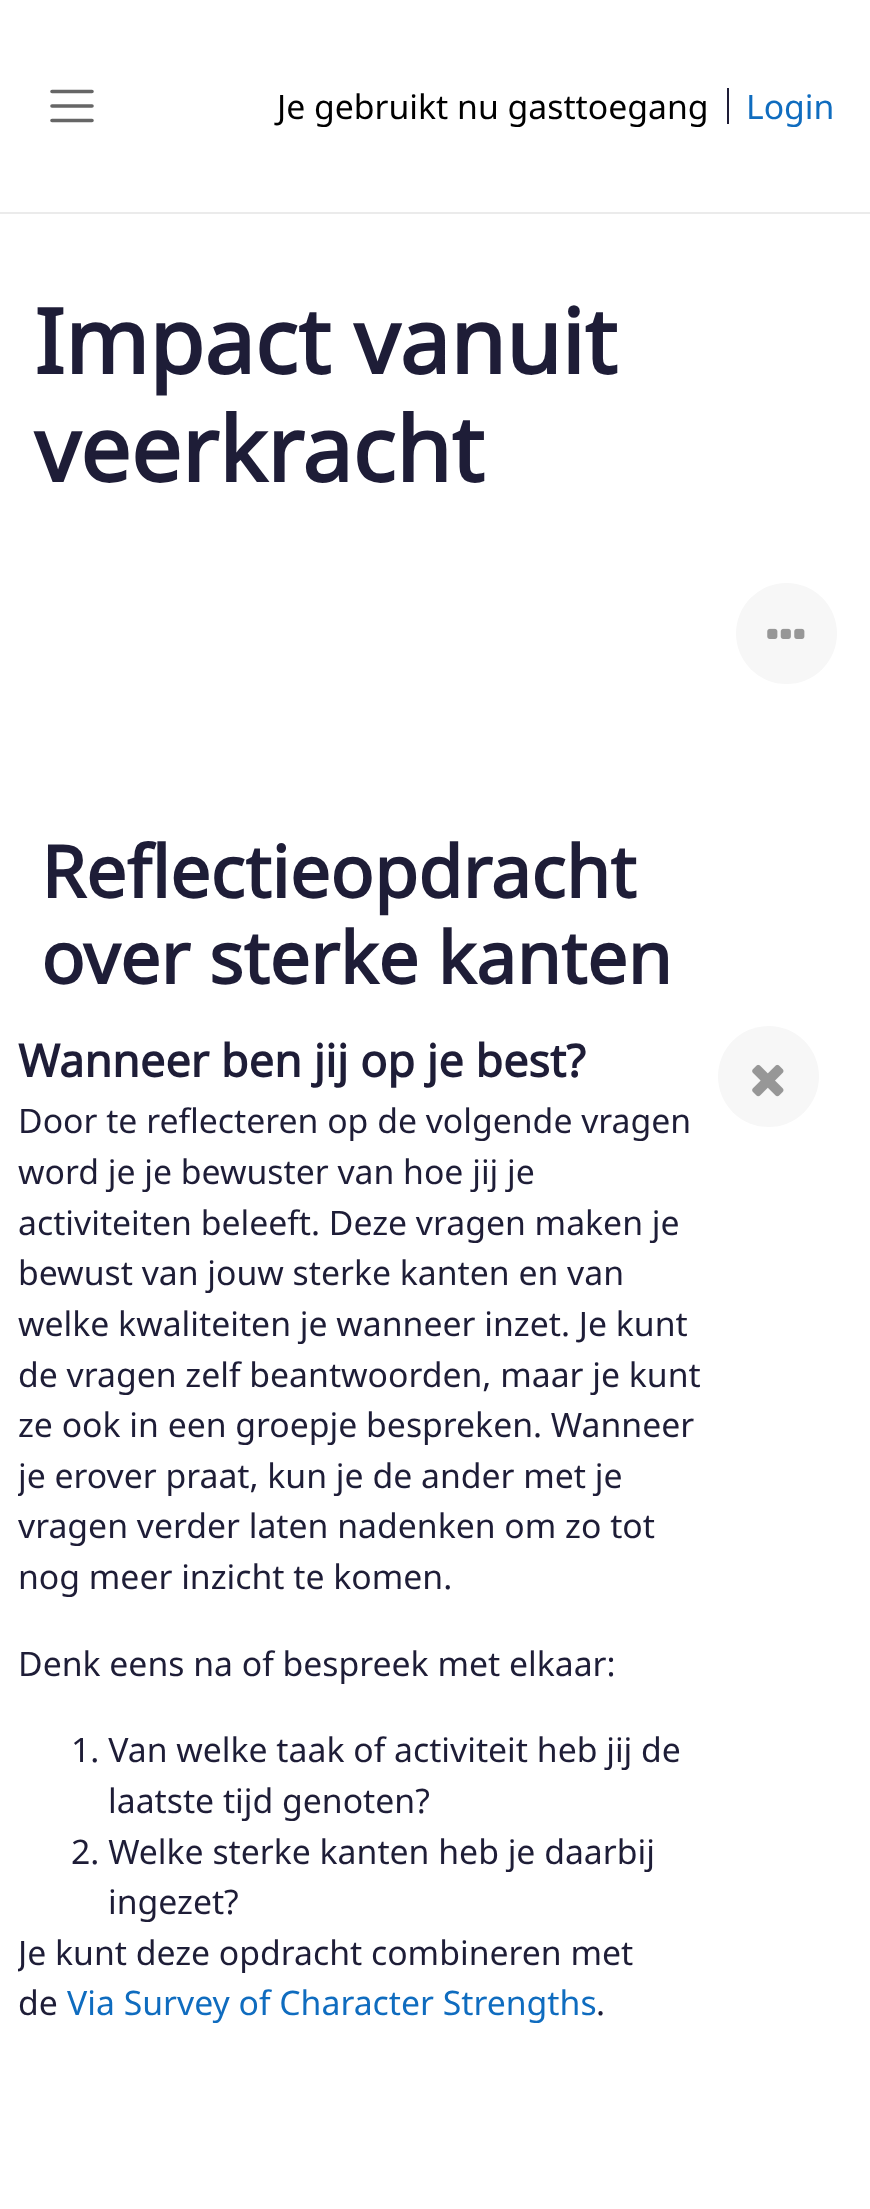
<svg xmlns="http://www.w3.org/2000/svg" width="870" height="2209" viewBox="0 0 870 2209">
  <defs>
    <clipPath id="clip1"><rect x="18" y="1035" width="689" height="1028"/></clipPath>
  </defs>
  <rect width="100%" height="100%" fill="#ffffff"/>
  <rect x="0" y="212" width="870" height="2" fill="#ebebeb"/>
  <path d="M52 91.5H92M52 106H92M52 120.5H92" fill="none" stroke="#666666" stroke-width="3.6" stroke-linecap="round"/>
  <text x="277" y="119" font-family="Noto Sans" font-size="33.75" fill="#000000">Je gebruikt nu gasttoegang</text>
  <rect x="727" y="88" width="2" height="36" fill="#1e1d37"/>
  <text x="746" y="119" font-family="Noto Sans" font-size="33.75" fill="#0f6cbf">Login</text>
  <text x="34" y="374" font-family="Noto Sans" font-size="90" font-weight="bold" fill="#1e1d37">Impact vanuit</text>
  <text x="34" y="482" font-family="Noto Sans" font-size="90" font-weight="bold" fill="#1e1d37">veerkracht</text>
  <circle cx="786.5" cy="633.5" r="50.5" fill="#f7f7f7"/>
  <image x="767" y="628" width="38" height="11" href="img1.png"/>
  <text x="41" y="898" font-family="Noto Sans" font-size="72" font-weight="bold" fill="#1e1d37">Reflectieopdracht</text>
  <text x="41" y="984" font-family="Noto Sans" font-size="72" font-weight="bold" fill="#1e1d37">over sterke kanten</text>
  <text x="18" y="1077" font-family="Noto Sans" font-size="45" font-weight="bold" fill="#1e1d37">Wanneer ben jij op je best?</text>
  <text x="18" y="1133" font-family="Noto Sans" font-size="33.75" fill="#1e1d37">Door te reflecteren op de volgende vragen</text>
  <text x="18" y="1184" font-family="Noto Sans" font-size="33.75" fill="#1e1d37">word je je bewuster van hoe jij je</text>
  <text x="18" y="1235" font-family="Noto Sans" font-size="33.75" fill="#1e1d37">activiteiten beleeft. Deze vragen maken je</text>
  <text x="18" y="1285" font-family="Noto Sans" font-size="33.75" fill="#1e1d37">bewust van jouw sterke kanten en van</text>
  <text x="18" y="1336" font-family="Noto Sans" font-size="33.75" fill="#1e1d37">welke kwaliteiten je wanneer inzet. Je kunt</text>
  <text x="18" y="1387" font-family="Noto Sans" font-size="33.75" fill="#1e1d37">de vragen zelf beantwoorden, maar je kunt</text>
  <text x="18" y="1437" font-family="Noto Sans" font-size="33.75" fill="#1e1d37">ze ook in een groepje bespreken. Wanneer</text>
  <g clip-path="url(#clip1)">
    <text x="18" y="1488" font-family="Noto Sans" font-size="33.75" fill="#1e1d37">je erover praat, kun je de ander met je</text>
  </g>
  <text x="18" y="1538" font-family="Noto Sans" font-size="33.75" fill="#1e1d37">vragen verder laten nadenken om zo tot</text>
  <text x="18" y="1589" font-family="Noto Sans" font-size="33.75" fill="#1e1d37">nog meer inzicht te komen.</text>
  <text x="18" y="1676" font-family="Noto Sans" font-size="33.75" fill="#1e1d37">Denk eens na of bespreek met elkaar:</text>
  <text x="71" y="1762" font-family="Noto Sans" font-size="33.75" fill="#1e1d37">1. Van welke taak of activiteit heb jij de</text>
  <text x="108" y="1813" font-family="Noto Sans" font-size="33.75" fill="#1e1d37">laatste tijd genoten?</text>
  <text x="71" y="1864" font-family="Noto Sans" font-size="33.75" fill="#1e1d37">2. Welke sterke kanten heb je daarbij</text>
  <text x="108" y="1914" font-family="Noto Sans" font-size="33.75" fill="#1e1d37">ingezet?</text>
  <g clip-path="url(#clip1)">
    <text x="18" y="1965" font-family="Noto Sans" font-size="33.75" fill="#1e1d37">Je kunt deze opdracht combineren met</text>
  </g>
  <text x="18" y="2015" font-family="Noto Sans" font-size="33.75" fill="#1e1d37">de</text>
  <text x="67" y="2015" font-family="Noto Sans" font-size="33.75" fill="#0f6cbf">Via Survey of Character Strengths</text>
  <text x="596" y="2015" font-family="Noto Sans" font-size="33.75" fill="#1e1d37">.</text>
  <circle cx="768.5" cy="1076.5" r="50.5" fill="#f7f7f7"/>
  <image x="752" y="1064" width="32" height="33" href="img2.png"/>
</svg>
